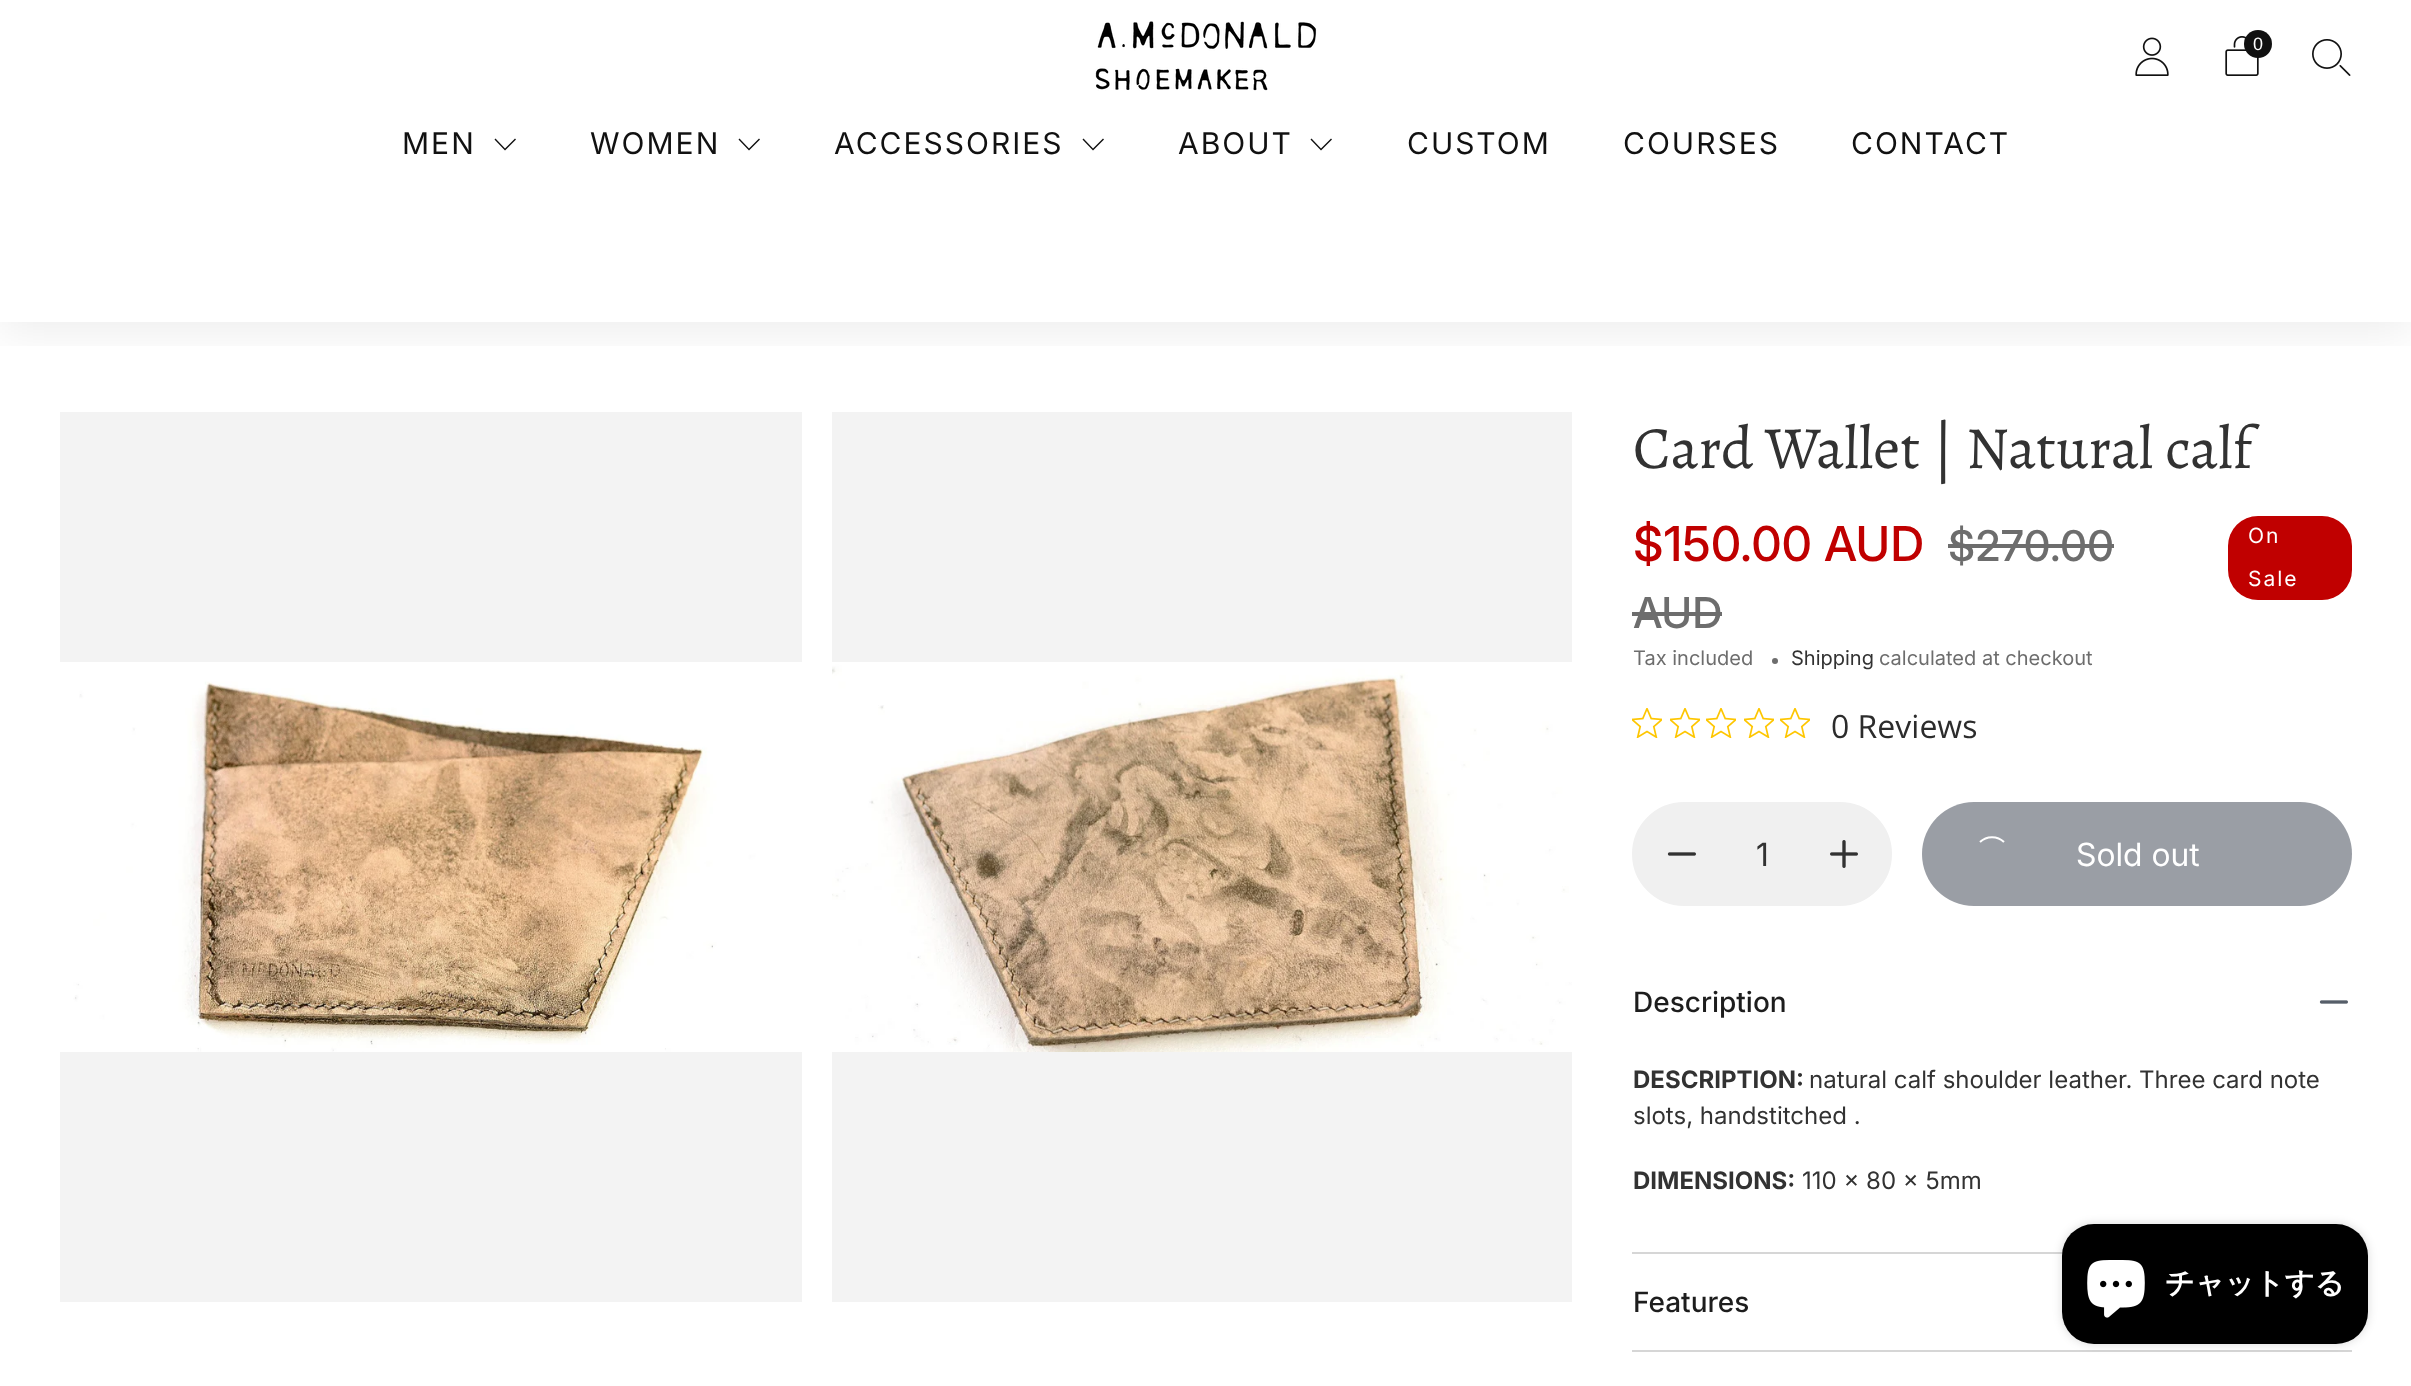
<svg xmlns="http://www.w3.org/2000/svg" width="2411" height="1386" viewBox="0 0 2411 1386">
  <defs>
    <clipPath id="clip1"><rect x="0" y="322" width="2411" height="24"/></clipPath>
    <filter id="blur1" x="-50%" y="-200%" width="200%" height="500%"><feGaussianBlur stdDeviation="24"/></filter>
    <filter id="blur2" x="-50%" y="-200%" width="200%" height="500%"><feGaussianBlur stdDeviation="5"/></filter>
  </defs>
  <rect width="100%" height="100%" fill="#ffffff"/>
  <g clip-path="url(#clip1)">
    <rect x="0" y="8" width="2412" height="322" fill="#000000" fill-opacity="0.08" filter="url(#blur1)"/>
  </g>
  <image x="1095" y="21" width="222" height="70" href="img1.png"/>
  <image x="2135" y="37" width="34" height="39" href="img2.png"/>
  <image x="2225" y="36" width="34" height="40" href="img3.png"/>
  <circle cx="2258" cy="44" r="14" fill="#111111"/>
  <text x="2253" y="50" font-family="Liberation Sans" font-size="18" fill="#ffffff">0</text>
  <image x="2312" y="39" width="39" height="37" href="img4.png"/>
  <text x="402" y="154" font-family="Inter" font-size="30" letter-spacing="2" fill="#111111">MEN</text>
  <path d="M495.5 138.5L494.5 139.5L505 150.5L516 139.5L515 138.5L505 148.5Z" fill="#111111"/>
  <text x="590" y="154" font-family="Inter" font-size="30" letter-spacing="2" fill="#111111">WOMEN</text>
  <path d="M739.5 138.5L738.5 139.5L749 150.5L760 139.5L759 138.5L749 148.5Z" fill="#111111"/>
  <text x="834" y="154" font-family="Inter" font-size="30" letter-spacing="2" fill="#111111">ACCESSORIES</text>
  <path d="M1083.5 138.5L1082.5 139.5L1093 150.5L1104 139.5L1103 138.5L1093 148.5Z" fill="#111111"/>
  <text x="1178" y="154" font-family="Inter" font-size="30" letter-spacing="2" fill="#111111">ABOUT</text>
  <path d="M1311.5 138.5L1310.5 139.5L1321 150.5L1332 139.5L1331 138.5L1321 148.5Z" fill="#111111"/>
  <text x="1407" y="154" font-family="Inter" font-size="30" letter-spacing="2" fill="#111111">CUSTOM</text>
  <text x="1623" y="154" font-family="Inter" font-size="30" letter-spacing="2" fill="#111111">COURSES</text>
  <text x="1851" y="154" font-family="Inter" font-size="30" letter-spacing="2" fill="#111111">CONTACT</text>
  <rect x="60" y="412" width="742" height="890" fill="#f3f3f3"/>
  <image x="60" y="662" width="742" height="390" href="img5.png"/>
  <rect x="832" y="412" width="740" height="890" fill="#f3f3f3"/>
  <image x="832" y="662" width="740" height="390" href="img6.png"/>
  <text x="1633" y="468" font-family="Alegreya" font-size="60" fill="#323232">Card Wallet | Natural calf</text>
  <text x="1633" y="561" font-family="Inter" font-size="48" font-weight="500" fill="#c00000">$150.00 AUD</text>
  <text x="1948" y="561" font-family="'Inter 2'" font-size="42.5" font-weight="500" fill="#6d6d6d">$270.00</text>
  <rect x="1948" y="544" width="166" height="4" fill="#6d6d6d"/>
  <text x="1633" y="628" font-family="'Inter 2'" font-size="42.5" font-weight="500" fill="#6d6d6d">AUD</text>
  <rect x="1632" y="612" width="90" height="4" fill="#6d6d6d"/>
  <rect x="2228" y="516" width="124" height="84" rx="30" fill="#c00000"/>
  <text x="2248" y="543" font-family="Inter" font-size="21" letter-spacing="2" fill="#ffffff">On</text>
  <text x="2248" y="586" font-family="Inter" font-size="21" letter-spacing="2" fill="#ffffff">Sale</text>
  <text x="1633" y="665" font-family="Inter" font-size="20" fill="#6d6d6d">Tax included</text>
  <circle cx="1775" cy="661" r="3" fill="#6d6d6d"/>
  <text x="1791" y="665" font-family="Inter" font-size="20" fill="#323232">Shipping</text>
  <text x="1879" y="665" font-family="Inter" font-size="20" fill="#6d6d6d">calculated at checkout</text>
  <image x="1632" y="708" width="30" height="30" href="img7.png"/>
  <image x="1670" y="708" width="30" height="30" href="img7.png"/>
  <image x="1706" y="708" width="30" height="30" href="img7.png"/>
  <image x="1744" y="708" width="30" height="30" href="img7.png"/>
  <image x="1780" y="708" width="30" height="30" href="img7.png"/>
  <text x="1831" y="738" font-family="Open Sans" font-size="32" fill="#2c2c2c">0 Reviews</text>
  <rect x="1633" y="803" width="258" height="102" rx="51" fill="#f0f0f0" stroke="#f0f0f0" stroke-width="2"/>
  <image x="1667" y="852" width="29" height="4" href="img8.png"/>
  <text x="1756" y="866" font-family="'Inter 2'" font-size="32" fill="#323232">1</text>
  <image x="1830" y="840" width="28" height="28" href="img9.png"/>
  <rect x="1922" y="802" width="430" height="104" rx="52" fill="#9a9ea5"/>
  <path d="M1980 842C1986.5 835.5 1997.5 835.5 2004 842M1980 842C1986.5 835.5 1997.5 835.5 2004 842M1980 842C1986.5 835.5 1997.5 835.5 2004 842M1980 842C1986.5 835.5 1997.5 835.5 2004 842" fill="none" stroke="#ffffff" stroke-width="2"/>
  <text x="2076" y="866" font-family="'Inter 2'" font-size="32" fill="#ffffff">Sold out</text>
  <rect x="1632" y="1252" width="431" height="2" fill="#d6d6d6"/>
  <text x="1633" y="1012" font-family="'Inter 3'" font-size="28" font-weight="500" fill="#1d1d1d">Description</text>
  <image x="2319" y="1000" width="29" height="4" href="img10.png"/>
  <text x="1633" y="1088" font-family="Inter" font-size="24" font-weight="bold" fill="#323232">DESCRIPTION:</text>
  <text x="1809" y="1088" font-family="Inter" font-size="24" fill="#323232">natural calf shoulder leather. Three card note</text>
  <text x="1633" y="1124" font-family="Inter" font-size="24" fill="#323232">slots, handstitched .</text>
  <text x="1633" y="1189" font-family="Inter" font-size="24" font-weight="bold" fill="#323232">DIMENSIONS:</text>
  <text x="1802" y="1189" font-family="Inter" font-size="24" fill="#323232">110 x 80 x 5mm</text>
  <rect x="1632" y="1350" width="720" height="2" fill="#d6d6d6"/>
  <text x="1633" y="1312" font-family="'Inter 3'" font-size="28" font-weight="500" fill="#1d1d1d">Features</text>
  <rect x="2062" y="1224" width="306" height="120" rx="32" fill="#000000" fill-opacity="0.15" filter="url(#blur2)"/>
  <rect x="2062" y="1224" width="306" height="120" rx="32" fill="#000000"/>
  <image x="2087" y="1260" width="58" height="58" href="img11.png"/>
  <text x="2165" y="1293" font-family="WenQuanYi Zen Hei" font-size="29.25" font-weight="bold" fill="#ffffff">チャットする</text>
</svg>
